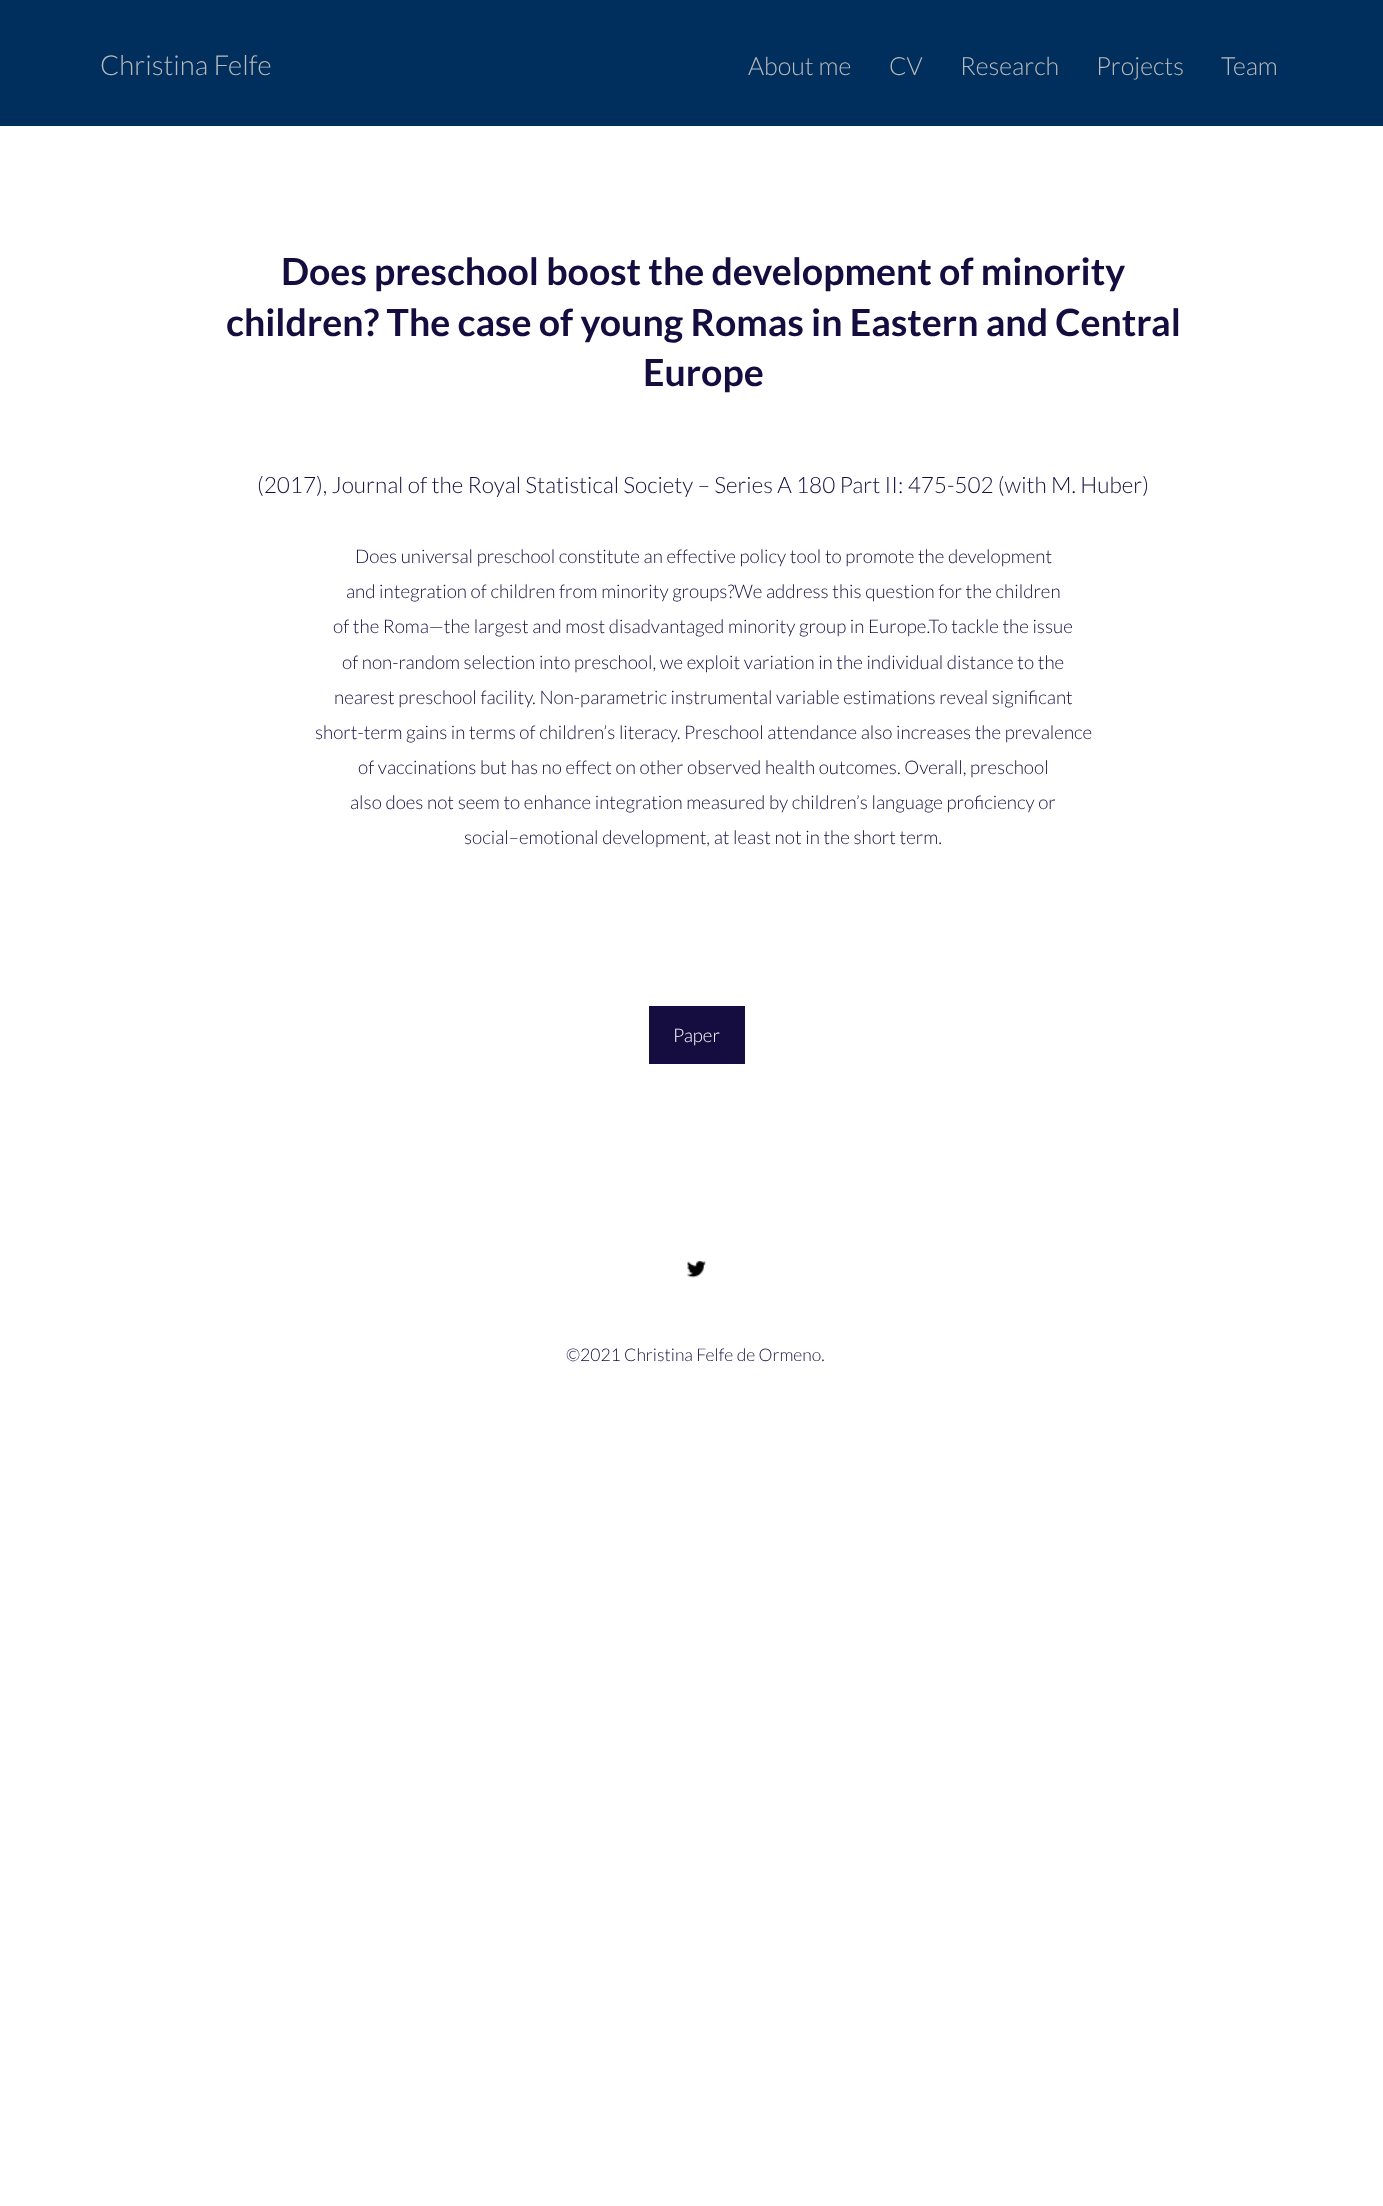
<svg xmlns="http://www.w3.org/2000/svg" width="1383" height="2206" viewBox="0 0 1383 2206">
  <rect width="100%" height="100%" fill="#ffffff"/>
  <rect x="0" y="0" width="1383" height="126" fill="#002e5d"/>
  <text x="100" y="75" font-family="Lato" font-size="27.5" font-weight="300" fill="#bababa">Christina Felfe</text>
  <text x="748" y="75" font-family="Lato" font-size="25" font-weight="300" fill="#bababa">About me</text>
  <text x="889" y="75" font-family="Lato" font-size="25" font-weight="300" fill="#bababa">CV</text>
  <text x="960" y="75" font-family="Lato" font-size="25" font-weight="300" fill="#bababa">Research</text>
  <text x="1096" y="75" font-family="Lato" font-size="25" font-weight="300" fill="#bababa">Projects</text>
  <text x="1221" y="75" font-family="Lato" font-size="25" font-weight="300" fill="#bababa">Team</text>
  <text x="281" y="285" font-family="Lato" font-size="37.5" font-weight="bold" fill="#150c3f">Does preschool boost the development of minority</text>
  <text x="226" y="336" font-family="Lato" font-size="37.5" font-weight="bold" fill="#150c3f">children? The case of young Romas in Eastern and Central</text>
  <text x="643" y="386" font-family="Lato" font-size="37.5" font-weight="bold" fill="#150c3f">Europe</text>
  <text x="257" y="493" font-family="Lato" font-size="22.5" font-weight="300" fill="#150c3f">(2017), Journal of the Royal Statistical Society – Series A 180 Part II: 475-502 (with M. Huber)</text>
  <text x="355" y="563" font-family="Lato" font-size="18.75" font-weight="300" fill="#150c3f">Does universal preschool constitute an effective policy tool to promote the development</text>
  <text x="346" y="598" font-family="Lato" font-size="18.75" font-weight="300" fill="#150c3f">and integration of children from minority groups?We address this question for the children</text>
  <text x="333" y="633" font-family="Lato" font-size="18.75" font-weight="300" fill="#150c3f">of the Roma—the largest and most disadvantaged minority group in Europe.To tackle the issue</text>
  <text x="342" y="669" font-family="Lato" font-size="18.75" font-weight="300" fill="#150c3f">of non-random selection into preschool, we exploit variation in the individual distance to the</text>
  <text x="334" y="704" font-family="Lato" font-size="18.75" font-weight="300" fill="#150c3f">nearest preschool facility. Non-parametric instrumental variable estimations reveal significant</text>
  <text x="315" y="739" font-family="Lato" font-size="18.75" font-weight="300" fill="#150c3f">short-term gains in terms of children’s literacy. Preschool attendance also increases the prevalence</text>
  <text x="358" y="774" font-family="Lato" font-size="18.75" font-weight="300" fill="#150c3f">of vaccinations but has no effect on other observed health outcomes. Overall, preschool</text>
  <text x="350" y="809" font-family="Lato" font-size="18.75" font-weight="300" fill="#150c3f">also does not seem to enhance integration measured by children’s language proficiency or</text>
  <text x="464" y="844" font-family="Lato" font-size="18.75" font-weight="300" fill="#150c3f">social–emotional development, at least not in the short term.</text>
  <rect x="649" y="1006" width="96" height="58" fill="#150c3f"/>
  <text x="673" y="1042" font-family="Lato" font-size="18.75" font-weight="300" fill="#ffffff">Paper</text>
  <image x="686" y="1260" width="21" height="18" href="img1.png"/>
  <text x="566" y="1361" font-family="Lato" font-size="17.5" font-weight="300" fill="#150c3f">©2021 Christina Felfe de Ormeno.</text>
</svg>
